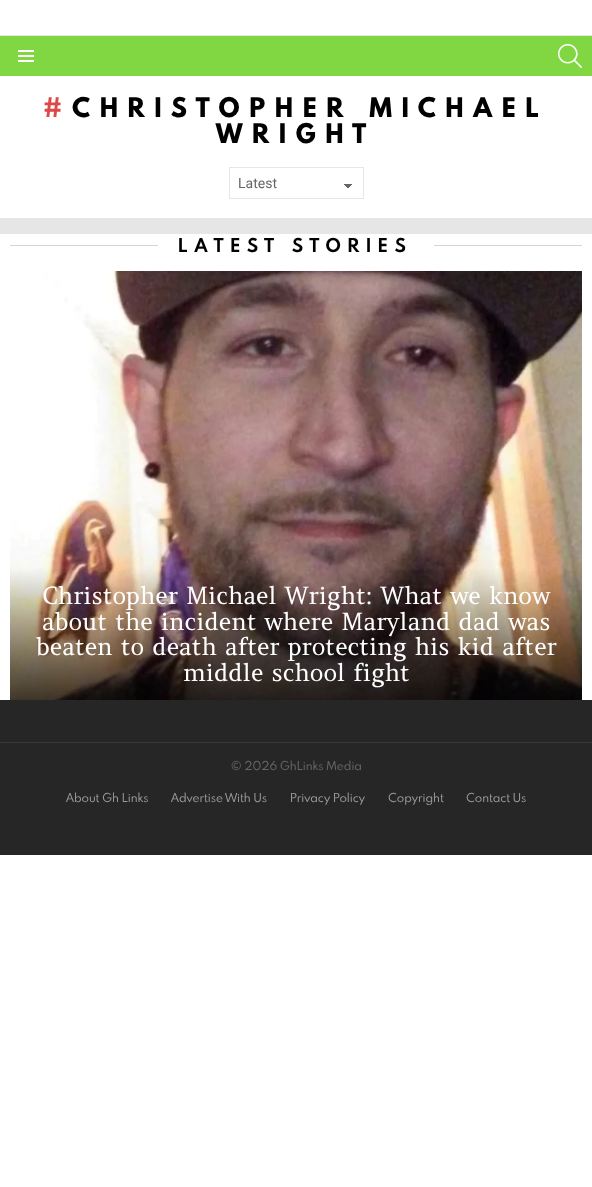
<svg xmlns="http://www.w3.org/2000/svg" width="592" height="1187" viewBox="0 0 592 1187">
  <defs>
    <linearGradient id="g1" gradientUnits="userSpaceOnUse" x1="348" y1="184" x2="353" y2="188"><stop offset="0.5" stop-color="#666666"/><stop offset="0.5" stop-color="#ffffff"/></linearGradient>
    <linearGradient id="g2" gradientUnits="userSpaceOnUse" x1="343" y1="188" x2="348" y2="184"><stop offset="0.5" stop-color="#ffffff"/><stop offset="0.5" stop-color="#666666"/></linearGradient>
  </defs>
  <rect width="100%" height="100%" fill="#ffffff"/>
  <rect x="0" y="35" width="592" height="199" fill="#e6e6e6"/>
  <rect x="0" y="36" width="592" height="40" fill="#81d742"/>
  <image x="18" y="50" width="16" height="12" href="img1.png"/>
  <image x="558" y="44" width="24" height="24" href="img2.png"/>
  <rect x="0" y="76" width="592" height="142" fill="#ffffff"/>
  <text x="43" y="117" font-family="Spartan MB" font-size="24" font-weight="800" letter-spacing="9.6" fill="#dd4949">#</text>
  <text x="72" y="117" font-family="Spartan MB" font-size="24" font-weight="800" letter-spacing="9.6" fill="#000000">CHRISTOPHER MICHAEL</text>
  <text x="216" y="143" font-family="Spartan MB" font-size="24" font-weight="800" letter-spacing="9.6" fill="#000000">WRIGHT</text>
  <rect x="348" y="184" width="5" height="4" fill="url(#g1)"/>
  <rect x="343" y="184" width="5" height="4" fill="url(#g2)"/>
  <rect x="229.5" y="167.5" width="134" height="31" fill="none" stroke="#e6e6e6"/>
  <text x="238" y="188" font-family="Roboto" font-size="14" fill="#666666">Latest</text>
  <rect x="10" y="245" width="148" height="1" fill="#d4d4d4"/>
  <text x="178" y="252" font-family="Spartan MB" font-size="17" font-weight="bold" letter-spacing="6.75" fill="#000000">LATEST STORIES</text>
  <rect x="434" y="245" width="148" height="1" fill="#d4d4d4"/>
  <image x="10" y="271" width="572" height="429" href="img3.png"/>
  <text x="42" y="604" font-family="Amethysta" font-size="24" fill="#ffffff">Christopher Michael Wright: What we know</text>
  <text x="42" y="630" font-family="Amethysta" font-size="24" fill="#ffffff">about the incident where Maryland dad was</text>
  <text x="36" y="655" font-family="Amethysta" font-size="24" fill="#ffffff">beaten to death after protecting his kid after</text>
  <text x="183" y="681" font-family="Amethysta" font-size="24" fill="#ffffff">middle school fight</text>
  <rect x="0" y="700" width="592" height="42" fill="#262626"/>
  <rect x="0" y="742" width="592" height="1" fill="#393939"/>
  <rect x="0" y="743" width="592" height="112" fill="#262626"/>
  <text x="231" y="770" font-family="Spartan MB" font-size="11" fill="#666666">© 2026 GhLinks Media</text>
  <text x="66" y="802" font-family="Spartan MB" font-size="11" fill="#999999">About Gh Links</text>
  <text x="171" y="802" font-family="Spartan MB" font-size="11" fill="#999999">Advertise With Us</text>
  <text x="290" y="802" font-family="Spartan MB" font-size="11" fill="#999999">Privacy Policy</text>
  <text x="388" y="802" font-family="Spartan MB" font-size="11" fill="#999999">Copyright</text>
  <text x="466" y="802" font-family="Spartan MB" font-size="11" fill="#999999">Contact Us</text>
</svg>
